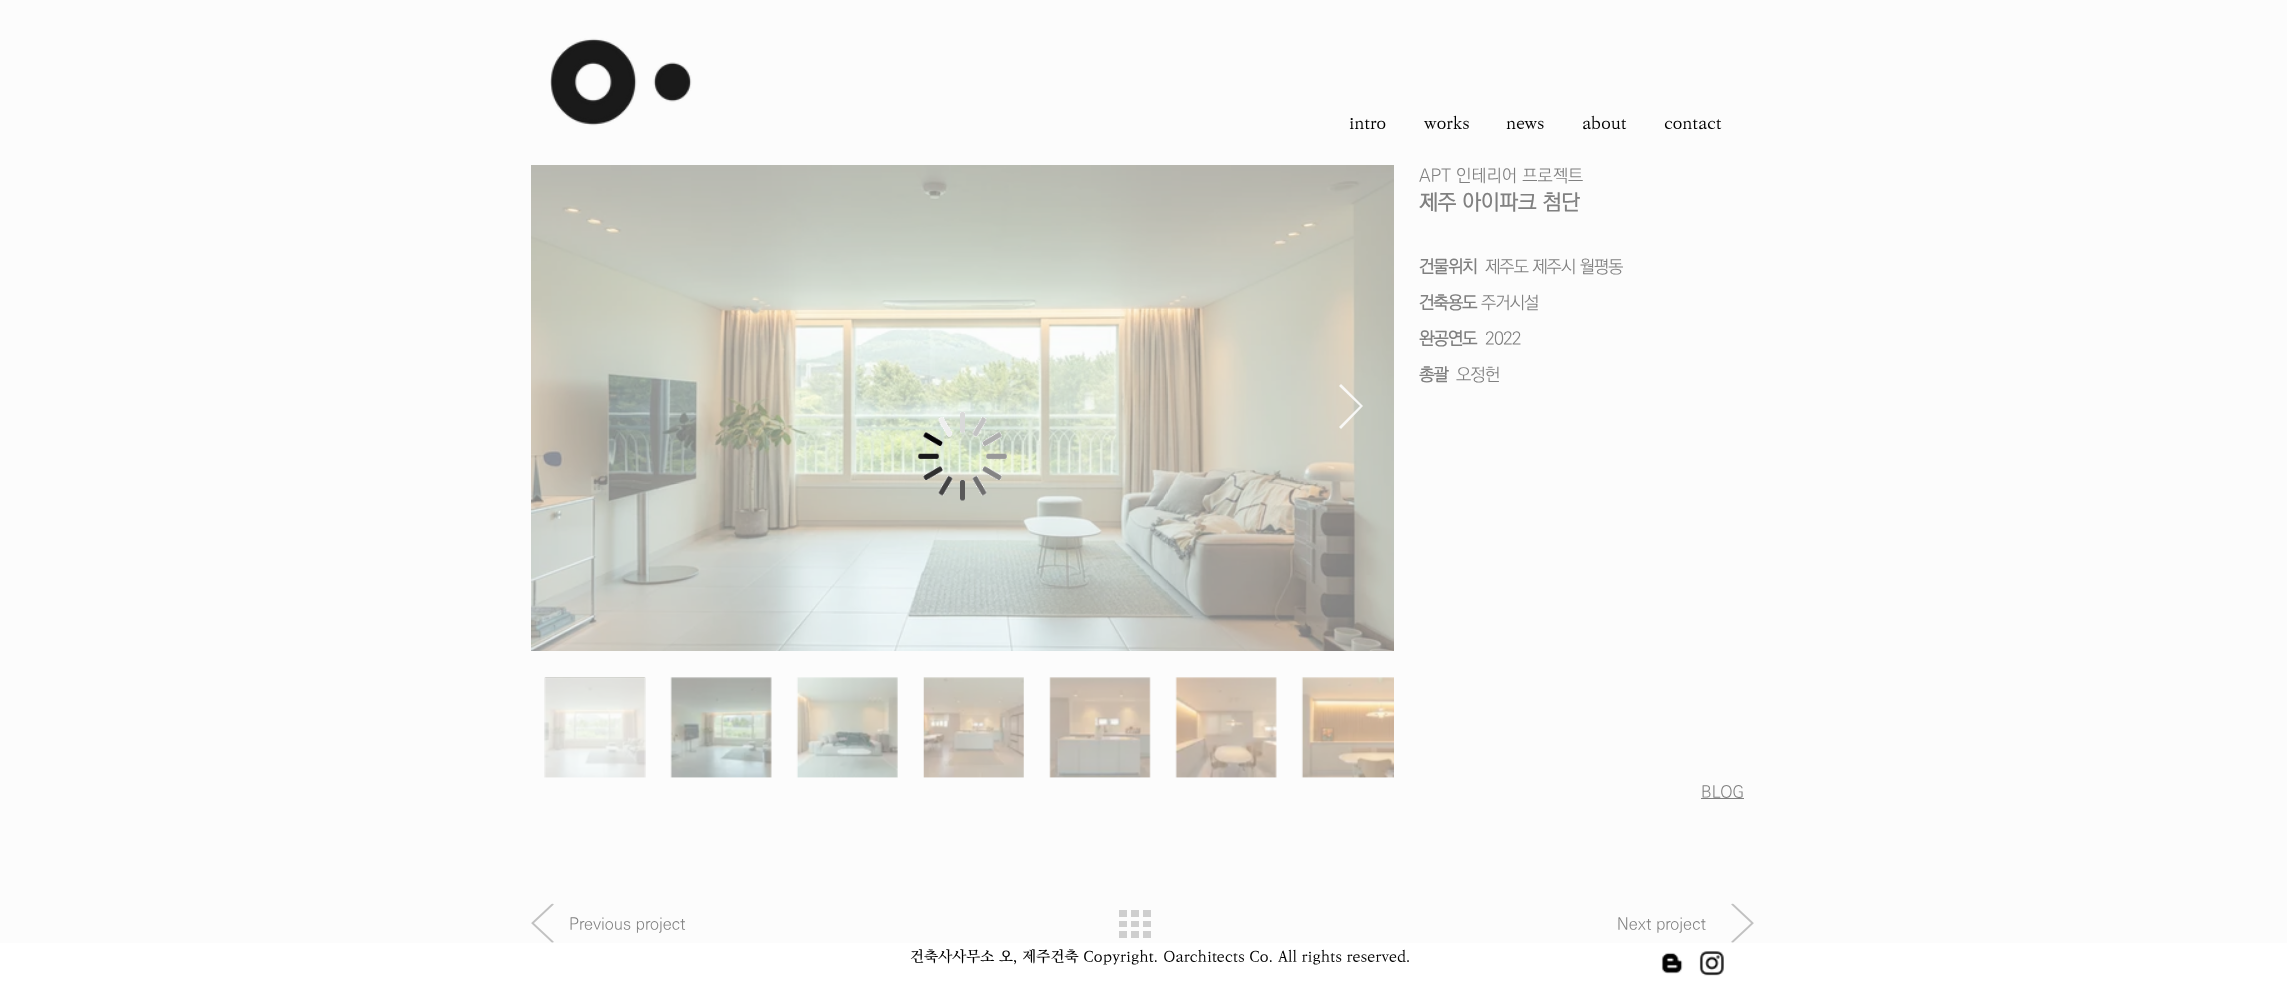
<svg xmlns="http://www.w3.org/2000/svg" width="2287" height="983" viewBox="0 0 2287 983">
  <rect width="100%" height="100%" fill="#ffffff"/>
  <rect x="0" y="0" width="2287" height="943" fill="#fcfcfc"/>
  <image x="550" y="38" width="142" height="88" href="img1.png"/>
  <text x="1349" y="128" font-family="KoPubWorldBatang" font-size="16.25" font-weight="500" fill="#000000">intro</text>
  <text x="1424" y="128" font-family="KoPubWorldBatang" font-size="16.25" font-weight="500" fill="#000000">works</text>
  <text x="1506" y="128" font-family="KoPubWorldBatang" font-size="16.25" font-weight="500" fill="#000000">news</text>
  <text x="1582" y="128" font-family="KoPubWorldBatang" font-size="16.25" font-weight="500" fill="#000000">about</text>
  <text x="1664" y="128" font-family="KoPubWorldBatang" font-size="16.25" font-weight="500" fill="#000000">contact</text>
  <image x="531" y="165" width="863" height="486" href="img2.png"/>
  <path d="M1339 386L1341 384L1363 406L1341 429L1339 427L1360 406Z" fill="#fcfcfc" fill-opacity="0.9"/>
  <image x="544" y="677" width="102" height="101" href="img3.png"/>
  <image x="670" y="677" width="102" height="101" href="img4.png"/>
  <image x="796" y="677" width="102" height="101" href="img5.png"/>
  <image x="923" y="677" width="101" height="101" href="img6.png"/>
  <image x="1049" y="677" width="102" height="101" href="img7.png"/>
  <image x="1175" y="677" width="102" height="101" href="img8.png"/>
  <image x="1301" y="677" width="93" height="101" href="img9.png"/>
  <text x="1419" y="181" font-family="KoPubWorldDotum" font-size="17.5" font-weight="300" fill="#808080">APT 인테리어 프로젝트</text>
  <text x="1419" y="209" font-family="KoPubWorldDotum" font-size="21.25" font-weight="bold" fill="#808080">제주 아이파크 첨단</text>
  <text x="1419" y="272" font-family="KoPubWorldDotum" font-size="17.5" font-weight="bold" letter-spacing="-0.9" fill="#808080">건물위치</text>
  <text x="1485" y="272" font-family="KoPubWorldDotum" font-size="17.5" font-weight="300" letter-spacing="-0.9" fill="#808080">제주도 제주시 월평동</text>
  <text x="1419" y="308" font-family="KoPubWorldDotum" font-size="17.5" font-weight="bold" letter-spacing="-0.9" fill="#808080">건축용도</text>
  <text x="1481" y="308" font-family="KoPubWorldDotum" font-size="17.5" font-weight="300" letter-spacing="-0.9" fill="#808080">주거시설</text>
  <text x="1419" y="344" font-family="KoPubWorldDotum" font-size="17.5" font-weight="bold" letter-spacing="-0.9" fill="#808080">완공연도</text>
  <text x="1485" y="344" font-family="KoPubWorldDotum" font-size="17.5" font-weight="300" letter-spacing="-0.9" fill="#808080">2022</text>
  <text x="1419" y="380" font-family="KoPubWorldDotum" font-size="17.5" font-weight="bold" letter-spacing="-0.9" fill="#808080">총괄</text>
  <text x="1456" y="380" font-family="KoPubWorldDotum" font-size="17.5" font-weight="300" letter-spacing="-0.9" fill="#808080">오정헌</text>
  <image x="918" y="412" width="89" height="89" href="img10.png"/>
  <text x="1701" y="797" font-family="KoPubWorldDotum" font-size="16.25" font-weight="300" fill="#808080">BLOG</text>
  <rect x="1701" y="798" width="43" height="1" fill="#808080"/>
  <image x="531" y="903" width="23" height="40" href="img11.png"/>
  <text x="569" y="929" font-family="KoPubWorldDotum" font-size="16.25" font-weight="300" fill="#808080">Previous project</text>
  <image x="1119" y="910" width="32" height="28" href="img12.png"/>
  <text x="1617" y="929" font-family="KoPubWorldDotum" font-size="16.25" font-weight="300" fill="#808080">Next project</text>
  <image x="1731" y="903" width="23" height="40" href="img13.png"/>
  <text x="910" y="961" font-family="KoPubWorldBatang" font-size="15" font-weight="500" fill="#000000">건축사사무소 오, 제주건축 Copyright. Oarchitects Co. All rights reserved.</text>
  <image x="1661" y="952" width="22" height="22" href="img14.png"/>
  <image x="1699" y="951" width="25" height="25" href="img15.png"/>
</svg>
